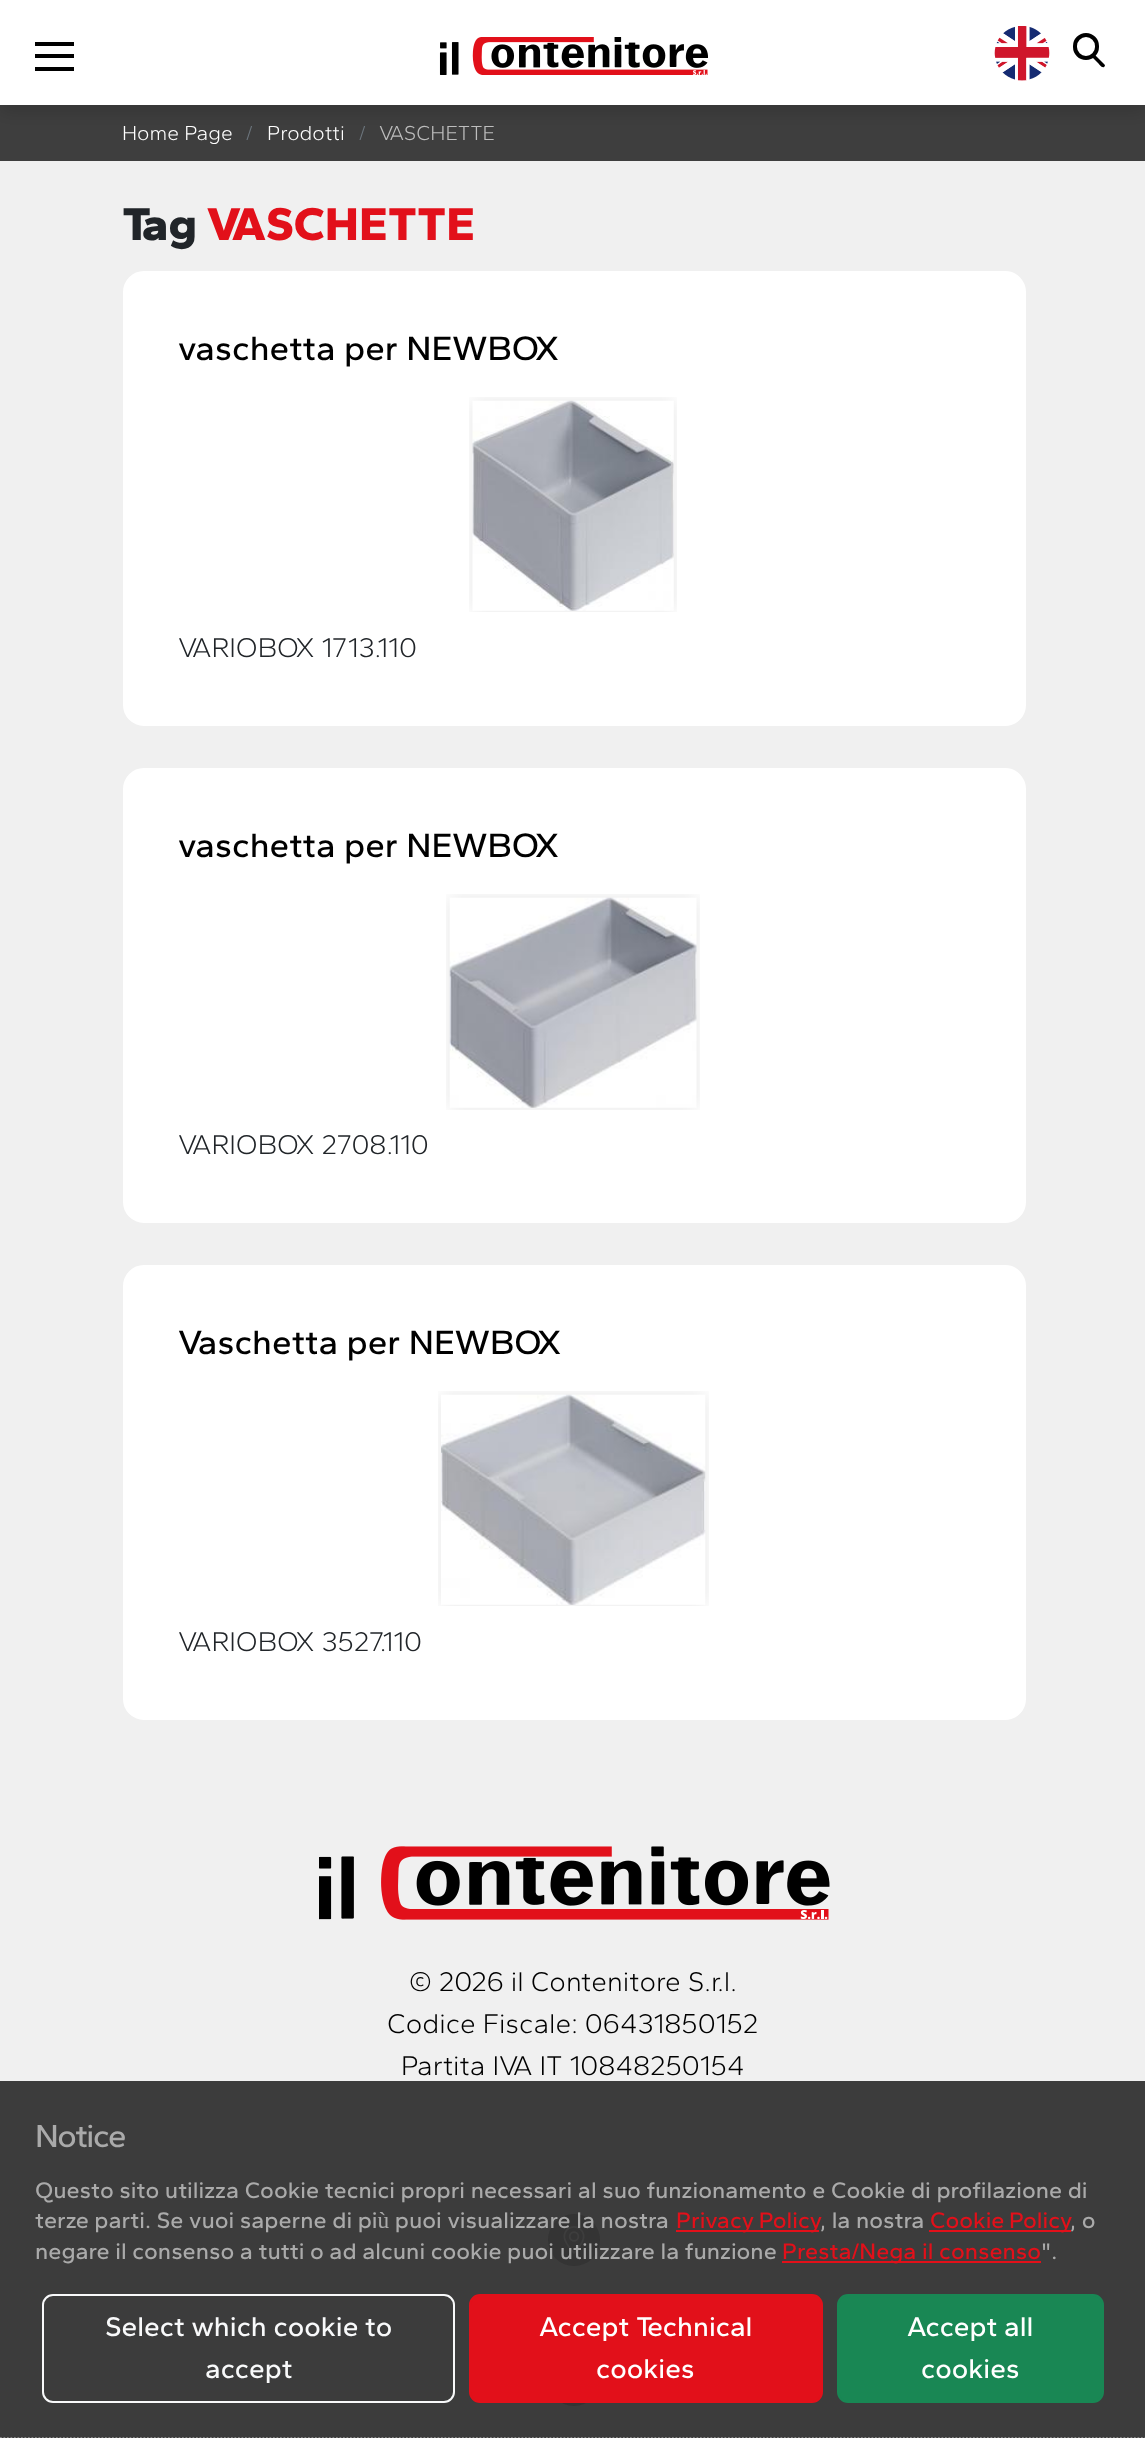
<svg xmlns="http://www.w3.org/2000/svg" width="1145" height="2438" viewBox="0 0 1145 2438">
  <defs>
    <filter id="blur1" x="-50%" y="-200%" width="200%" height="500%"><feGaussianBlur stdDeviation="9"/></filter>
  </defs>
  <rect width="100%" height="100%" fill="#f0f0f0"/>
  <rect x="0" y="2081" width="1145" height="357" fill="#3c3c3c"/>
  <rect x="0" y="105" width="1145" height="56" fill="#3e3e3e"/>
  <rect x="0" y="7" width="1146" height="105" fill="#000000" fill-opacity="0.15" filter="url(#blur1)"/>
  <rect x="0" y="0" width="1145" height="105" fill="#ffffff"/>
  <rect x="35" y="42" width="39" height="4" fill="#000000"/>
  <rect x="35" y="54" width="39" height="4" fill="#000000"/>
  <rect x="35" y="67" width="39" height="4" fill="#000000"/>
  <image x="439" y="37" width="269" height="38" href="img1.png"/>
  <image x="994" y="26" width="56" height="55" href="img2.png"/>
  <path d="M1082 42L1104.5 64.5L1105 65.5C1105 66 1104.5 66.5 1104 67C1102 68.5 1098.5 63.5 1098 63L1079 44C1079 42.5 1079.5 41.5 1081 41.5Z" fill="#000000"/>
  <rect x="1075" y="35" width="22" height="23" rx="11" fill="#ffffff" stroke="#000000" stroke-width="4"/>
  <text x="122" y="140" font-family="Gantari" font-size="21" font-weight="300" fill="#ffffff">Home Page</text>
  <text x="246" y="140" font-family="Gantari" font-size="21" font-weight="300" fill="#6c757d">/</text>
  <text x="267" y="140" font-family="Gantari" font-size="21" font-weight="300" fill="#ffffff">Prodotti</text>
  <text x="359" y="140" font-family="Gantari" font-size="21" font-weight="300" fill="#6c757d">/</text>
  <text x="379" y="140" font-family="Gantari" font-size="21" font-weight="300" fill="#bdbdbd">VASCHETTE</text>
  <text x="122" y="240" font-family="Gantari" font-size="47.5" font-weight="800" fill="#212529">Tag</text>
  <text x="207" y="240" font-family="Gantari" font-size="47.5" font-weight="800" fill="#e2101a">VASCHETTE</text>
  <rect x="125" y="273" width="899" height="451" rx="19" fill="#ffffff" stroke="#ffffff" stroke-width="4"/>
  <text x="178" y="360" font-family="Gantari" font-size="35" font-weight="500" fill="#000000">vaschetta per NEWBOX</text>
  <image x="469" y="397" width="208" height="215" href="img3.png"/>
  <text x="178" y="657" font-family="Gantari" font-size="28" font-weight="300" fill="#212529">VARIOBOX 1713.110</text>
  <rect x="125" y="770" width="899" height="451" rx="19" fill="#ffffff" stroke="#ffffff" stroke-width="4"/>
  <text x="178" y="857" font-family="Gantari" font-size="35" font-weight="500" fill="#000000">vaschetta per NEWBOX</text>
  <image x="446" y="894" width="254" height="216" href="img4.png"/>
  <text x="178" y="1154" font-family="Gantari" font-size="28" font-weight="300" fill="#212529">VARIOBOX 2708.110</text>
  <rect x="125" y="1267" width="899" height="451" rx="19" fill="#ffffff" stroke="#ffffff" stroke-width="4"/>
  <text x="178" y="1354" font-family="Gantari" font-size="35" font-weight="500" fill="#000000">Vaschetta per NEWBOX</text>
  <image x="438" y="1391" width="271" height="215" href="img5.png"/>
  <text x="178" y="1651" font-family="Gantari" font-size="28" font-weight="300" fill="#212529">VARIOBOX 3527.110</text>
  <image x="319" y="1846" width="511" height="74" href="img6.png"/>
  <text x="409" y="1991" font-family="Gantari" font-size="28" font-weight="300" fill="#000000">© 2026 il Contenitore S.r.l.</text>
  <text x="387" y="2033" font-family="Gantari" font-size="28" font-weight="300" fill="#000000">Codice Fiscale: 06431850152</text>
  <text x="401" y="2075" font-family="Gantari" font-size="28" font-weight="300" fill="#000000">Partita IVA IT 10848250154</text>
  <circle cx="574" cy="2240" r="26" fill="#343434"/>
  <image x="563" y="2226" width="22" height="28" href="img7.png"/>
  <circle cx="574" cy="2380" r="26" fill="#343434"/>
  <path d="M0 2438.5H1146" fill="none" stroke="#cccccc" stroke-width="1.8" stroke-dasharray="1.75 1.75"/>
  <text x="35" y="2147" font-family="Gantari" font-size="33" font-weight="500" letter-spacing="-1.5" fill="#aaaaaa">Notice</text>
  <text x="35" y="2198" font-family="Gantari" font-size="23.35" font-weight="500" fill="#aaaaaa">Questo sito utilizza Cookie tecnici propri necessari al suo funzionamento e Cookie di profilazione di</text>
  <text x="35" y="2228" font-family="Gantari" font-size="23.35" font-weight="500" fill="#aaaaaa">terze parti. Se vuoi saperne di più puoi visualizzare la nostra</text>
  <rect x="676" y="2230" width="143" height="2" fill="#e2101a"/>
  <text x="676" y="2228" word-spacing="-1" font-family="Gantari" font-size="23.35" font-weight="500" fill="#e2101a">Privacy Policy</text>
  <text x="820" y="2228" font-family="Gantari" font-size="23.35" font-weight="500" fill="#aaaaaa">, la nostra</text>
  <rect x="929" y="2230" width="142" height="2" fill="#e2101a"/>
  <text x="930" y="2228" word-spacing="-1" font-family="Gantari" font-size="23.35" font-weight="500" fill="#e2101a">Cookie Policy</text>
  <text x="1070" y="2228" font-family="Gantari" font-size="23.35" font-weight="500" fill="#aaaaaa">, o</text>
  <text x="35" y="2259" font-family="Gantari" font-size="23.35" font-weight="500" fill="#aaaaaa">negare il consenso a tutti o ad alcuni cookie puoi utilizzare la funzione</text>
  <rect x="782" y="2261" width="259" height="2" fill="#e2101a"/>
  <text x="782" y="2259" font-family="Gantari" font-size="23.35" font-weight="500" fill="#e2101a">Presta/Nega il consenso</text>
  <text x="1041" y="2259" font-family="Gantari" font-size="23.35" font-weight="500" fill="#aaaaaa">".</text>
  <rect x="43" y="2295" width="411" height="107" rx="10" fill="none" stroke="#f8f9fa" stroke-width="2"/>
  <text x="105" y="2336" font-family="Gantari" font-size="28" font-weight="500" fill="#f8f9fa">Select which cookie to</text>
  <text x="205" y="2378" font-family="Gantari" font-size="28" font-weight="500" fill="#f8f9fa">accept</text>
  <rect x="470" y="2295" width="352" height="107" rx="10" fill="#e2101a" stroke="#e2101a" stroke-width="2"/>
  <text x="539" y="2336" font-family="Gantari" font-size="28" font-weight="500" fill="#ffffff">Accept Technical</text>
  <text x="596" y="2378" font-family="Gantari" font-size="28" font-weight="500" fill="#ffffff">cookies</text>
  <rect x="838" y="2295" width="265" height="107" rx="10" fill="#198754" stroke="#198754" stroke-width="2"/>
  <text x="907" y="2336" font-family="Gantari" font-size="28" font-weight="500" fill="#ffffff">Accept all</text>
  <text x="921" y="2378" font-family="Gantari" font-size="28" font-weight="500" fill="#ffffff">cookies</text>
</svg>
